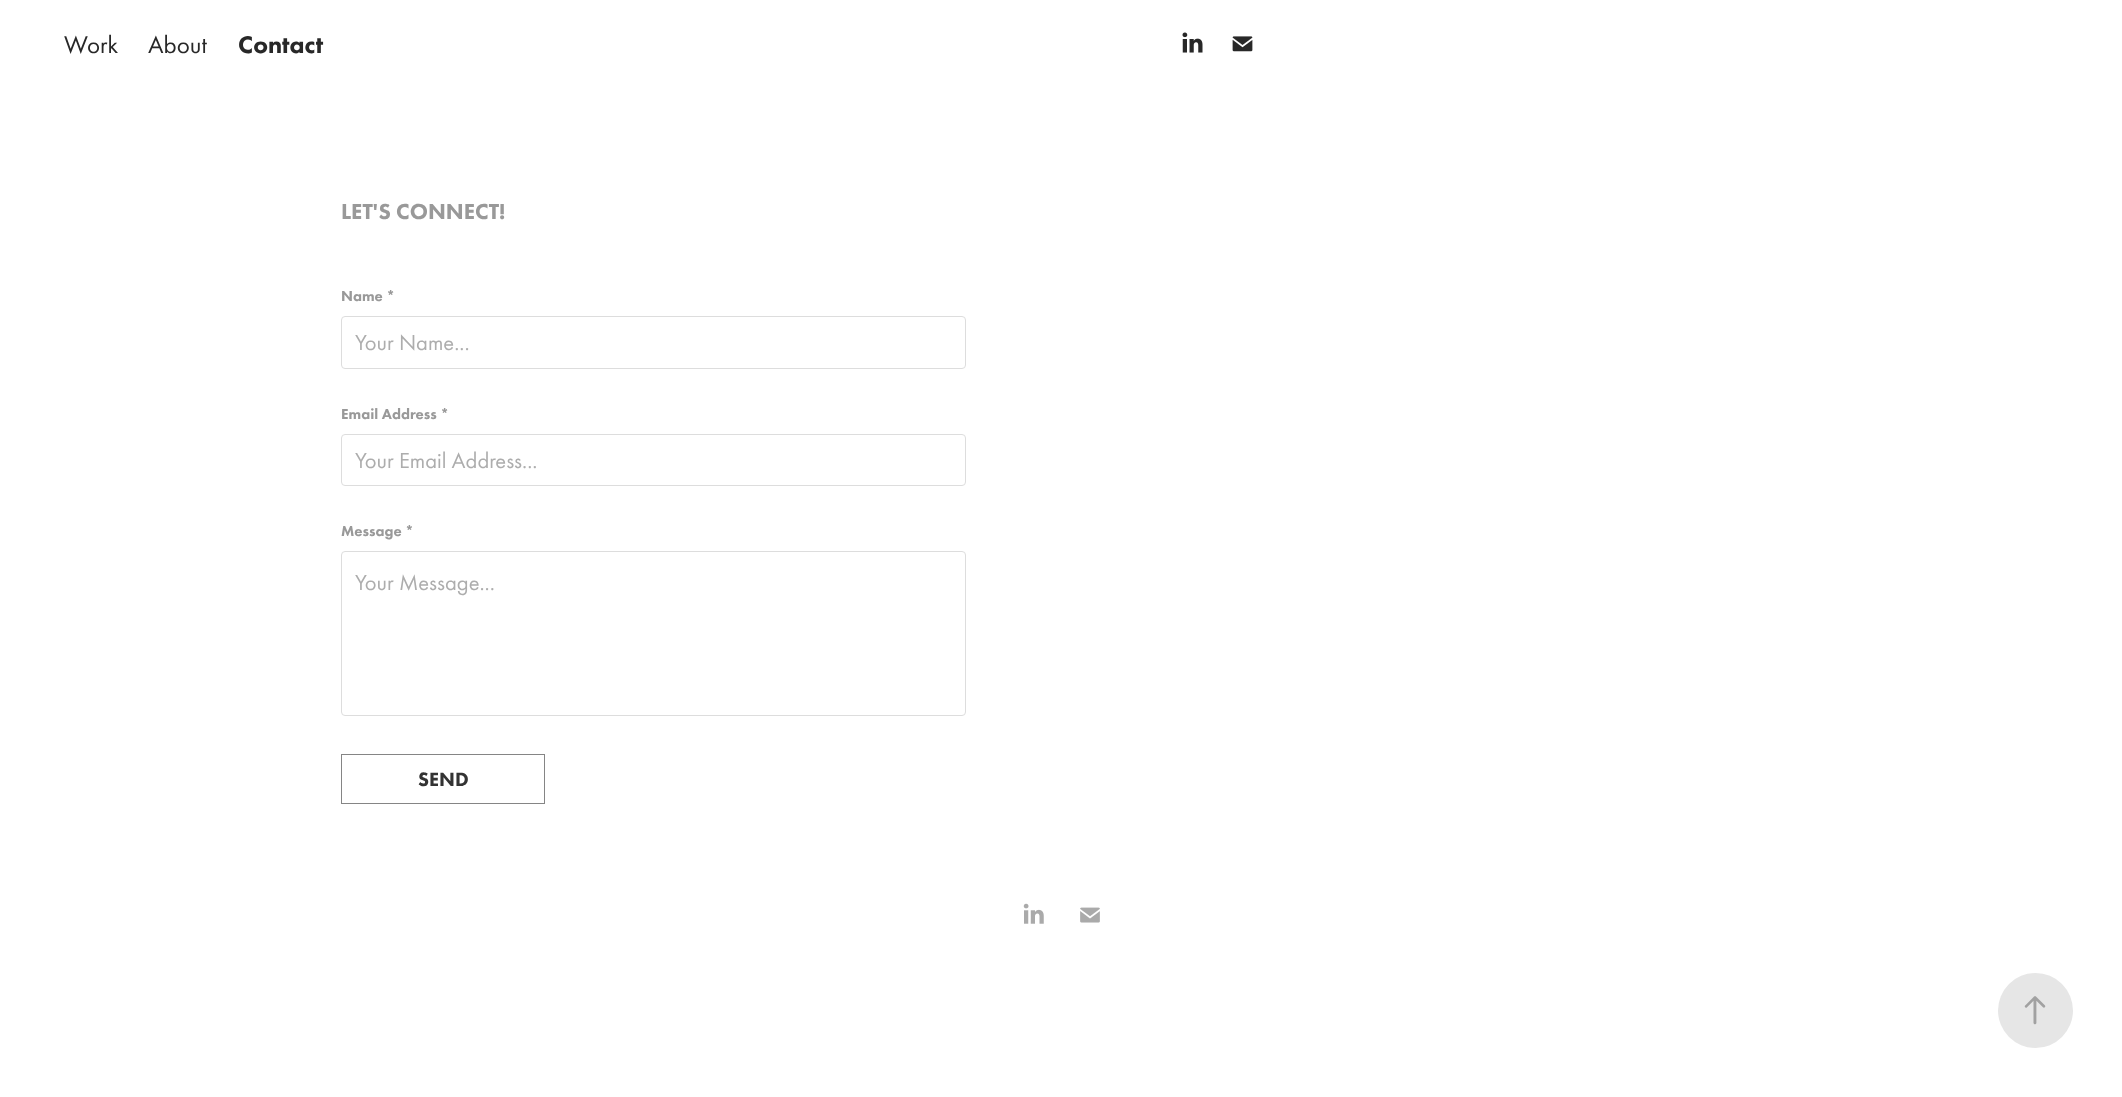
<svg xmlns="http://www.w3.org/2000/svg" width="2122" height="1097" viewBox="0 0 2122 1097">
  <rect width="100%" height="100%" fill="#ffffff"/>
  <text x="64" y="53" font-family="Futura PT" font-size="25" fill="#282828">Work</text>
  <text x="148" y="53" font-family="Futura PT" font-size="25" fill="#282828">About</text>
  <text x="238" y="53" font-family="Futura PT" font-size="25" font-weight="900" fill="#282828">Contact</text>
  <image x="1182" y="32" width="21" height="21" href="img1.png"/>
  <image x="1232" y="36" width="21" height="16" href="img2.png"/>
  <text x="341" y="219" font-family="Futura PT" font-size="22.5" font-weight="900" fill="#999999">LET'S CONNECT!</text>
  <text x="341" y="301" font-family="Futura PT" font-size="15" font-weight="900" fill="#999999">Name *</text>
  <rect x="341.5" y="316.5" width="624" height="52" rx="3.5" fill="none" stroke="#dddddd"/>
  <text x="355" y="350" font-family="Futura PT" font-size="22.5" fill="#adadad">Your Name...</text>
  <text x="341" y="419" font-family="Futura PT" font-size="15" font-weight="900" fill="#999999">Email Address *</text>
  <rect x="341.5" y="434.5" width="624" height="51" rx="3.5" fill="none" stroke="#dddddd"/>
  <text x="355" y="468" font-family="Futura PT" font-size="22.5" fill="#adadad">Your Email Address...</text>
  <text x="341" y="536" font-family="Futura PT" font-size="15" font-weight="900" fill="#999999">Message *</text>
  <rect x="341.5" y="551.5" width="624" height="164" rx="3.5" fill="none" stroke="#dddddd"/>
  <text x="355" y="590" font-family="Futura PT" font-size="22.5" fill="#adadad">Your Message...</text>
  <rect x="341.5" y="754.5" width="203" height="49" fill="none" stroke="#858585"/>
  <text x="418" y="786" font-family="Futura PT" font-size="20" font-weight="900" fill="#333333">SEND</text>
  <circle cx="2035.5" cy="1010.5" r="37.5" fill="#e6e6e6"/>
  <image x="2024" y="996" width="22" height="29" href="img3.png"/>
  <image x="1023" y="903" width="21" height="21" href="img4.png"/>
  <image x="1080" y="907" width="20" height="16" href="img5.png"/>
</svg>
